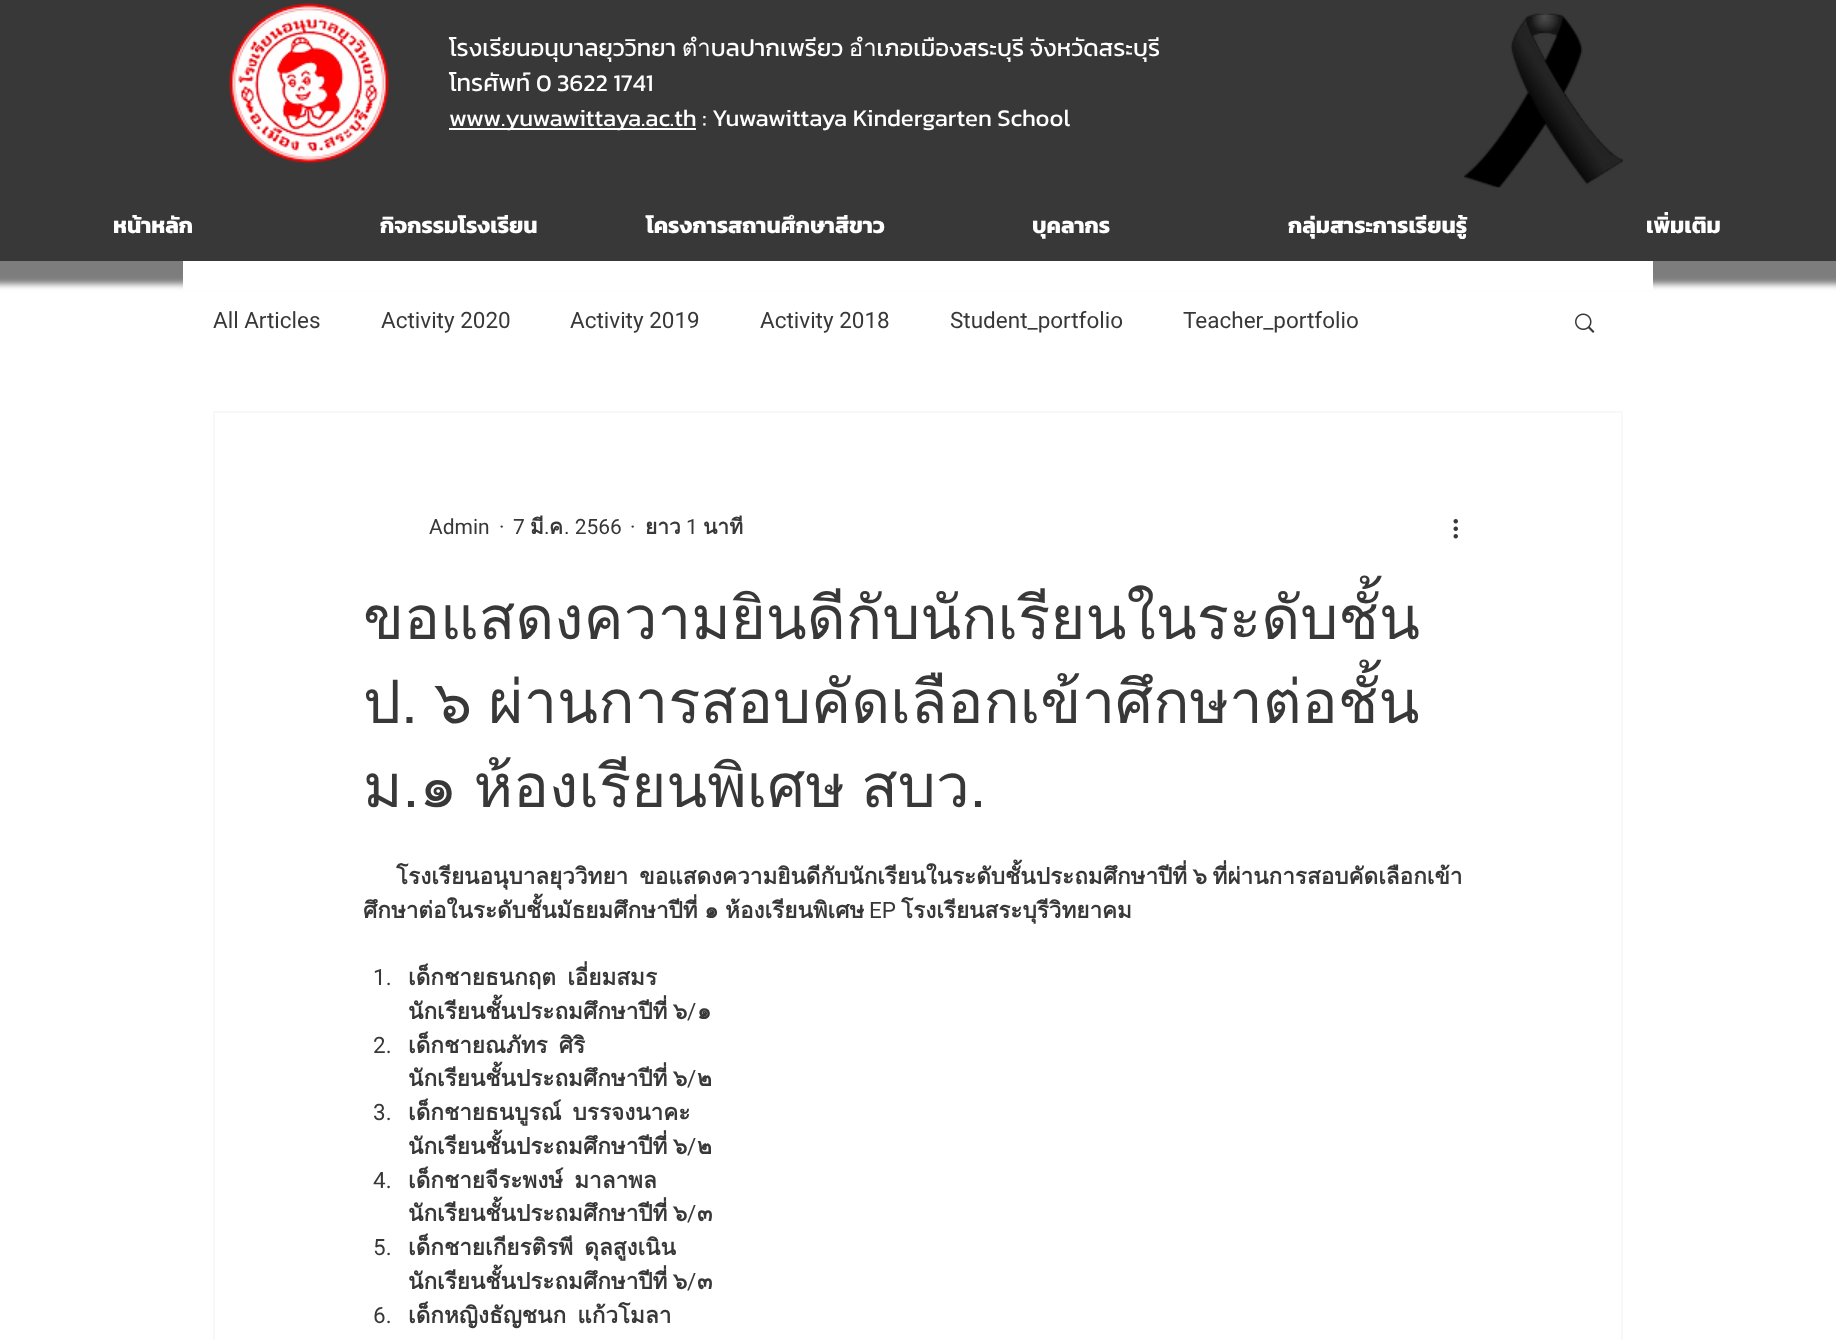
<svg xmlns="http://www.w3.org/2000/svg" width="1836" height="1340" viewBox="0 0 1836 1340">
  <defs>
    <filter id="blur1" x="-50%" y="-200%" width="200%" height="500%"><feGaussianBlur stdDeviation="3"/></filter>
  </defs>
  <rect width="100%" height="100%" fill="#ffffff"/>
  <rect x="-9" y="-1" width="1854" height="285" fill="#000000" fill-opacity="0.51" filter="url(#blur1)"/>
  <rect x="0" y="0" width="1836" height="261" fill="#383838"/>
  <image x="229" y="2" width="160" height="162" href="img1.png"/>
  <text x="449" y="56" font-family="Kanit" font-size="24" fill="#ffffff">โรงเรียนอนุบาลยุววิทยา ตำบลปากเพรียว อำเภอเมืองสระบุรี จังหวัดสระบุรี</text>
  <text x="449" y="91" font-family="Kanit" font-size="24" fill="#ffffff">โทรศัพท์ 0 3622 1741</text>
  <rect x="449" y="128" width="247" height="2" fill="#ffffff"/>
  <text x="449" y="126" font-family="Kanit" font-size="24" fill="#ffffff">www.yuwawittaya.ac.th : Yuwawittaya Kindergarten School</text>
  <image x="1464" y="13" width="159" height="175" href="img2.png"/>
  <text x="113" y="233" font-family="Kanit" font-size="22.5" font-weight="bold" fill="#ffffff">หน้าหลัก</text>
  <text x="380" y="233" font-family="Kanit" font-size="22.5" font-weight="bold" fill="#ffffff">กิจกรรมโรงเรียน</text>
  <text x="646" y="233" font-family="Kanit" font-size="22.5" font-weight="bold" fill="#ffffff">โครงการสถานศึกษาสีขาว</text>
  <text x="1032" y="233" font-family="Kanit" font-size="22.5" font-weight="bold" fill="#ffffff">บุคลากร</text>
  <text x="1288" y="233" font-family="Kanit" font-size="22.5" font-weight="bold" fill="#ffffff">กลุ่มสาระการเรียนรู้</text>
  <text x="1646" y="233" font-family="Kanit" font-size="22.5" font-weight="bold" fill="#ffffff">เพิ่มเติม</text>
  <rect x="183" y="261" width="1470" height="29" fill="#ffffff"/>
  <text x="213" y="328" font-family="Roboto" font-size="22.5" fill="#383838">All Articles</text>
  <text x="381" y="328" font-family="Roboto" font-size="22.5" fill="#383838">Activity 2020</text>
  <text x="570" y="328" font-family="Roboto" font-size="22.5" fill="#383838">Activity 2019</text>
  <text x="760" y="328" font-family="Roboto" font-size="22.5" fill="#383838">Activity 2018</text>
  <text x="950" y="328" font-family="Roboto" font-size="22.5" fill="#383838">Student_portfolio</text>
  <text x="1183" y="328" font-family="Roboto" font-size="22.5" fill="#383838">Teacher_portfolio</text>
  <image x="1575" y="313" width="20" height="20" href="img3.png"/>
  <rect x="214" y="412" width="1408" height="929" fill="none" stroke="#f8f8f8" stroke-width="2"/>
  <text x="429" y="534" font-family="Roboto" font-size="21" fill="#383838">Admin</text>
  <text x="499" y="534" font-family="Roboto" font-size="21" fill="#383838">·</text>
  <text x="513" y="534" font-family="Roboto" font-size="21" fill="#383838">7</text>
  <text x="530" y="534" font-family="Loma" font-size="21" font-weight="bold" fill="#383838">มี</text>
  <text x="549" y="534" font-family="Loma" font-size="21" font-weight="bold" fill="#383838">ค</text>
  <text x="564" y="534" font-family="Roboto" font-size="21" fill="#383838">. 2566</text>
  <text x="544" y="534" font-family="Roboto" font-size="21" fill="#383838">.</text>
  <text x="630" y="534" font-family="Roboto" font-size="21" fill="#383838">·</text>
  <text x="645" y="534" font-family="Loma" font-size="21" font-weight="bold" fill="#383838">ยาว</text>
  <text x="686" y="534" font-family="Roboto" font-size="21" fill="#383838">1</text>
  <text x="703" y="534" font-family="Loma" font-size="21" font-weight="bold" fill="#383838">นาที</text>
  <image x="1453" y="519" width="5" height="20" href="img4.png"/>
  <text x="363" y="639" font-family="Loma" font-size="60" fill="#383838">ขอแสดงความยินดีกับนักเรียนในระดับชั้น</text>
  <text x="363" y="723" word-spacing="-4" font-family="Loma" font-size="60" fill="#383838">ป. ๖ ผ่านการสอบคัดเลือกเข้าศึกษาต่อชั้น</text>
  <text x="363" y="807" word-spacing="-4" font-family="Loma" font-size="60" fill="#383838">ม.๑ ห้องเรียนพิเศษ สบว.</text>
  <text x="396" y="884" word-spacing="-2" font-family="Loma" font-size="22.5" font-weight="bold" fill="#383838" xml:space="preserve">โรงเรียนอนุบาลยุววิทยา  ขอแสดงความยินดีกับนักเรียนในระดับชั้นประถมศึกษาปีที่ ๖ ที่ผ่านการสอบคัดเลือกเข้า</text>
  <text x="363" y="918" word-spacing="-1" font-family="Loma" font-size="22.5" font-weight="bold" fill="#383838">ศึกษาต่อในระดับชั้นมัธยมศึกษาปีที่ ๑ ห้องเรียนพิเศษ</text>
  <text x="869" y="918" font-family="Roboto" font-size="22.5" fill="#383838">EP</text>
  <text x="901" y="918" font-family="Loma" font-size="22.5" font-weight="bold" fill="#383838">โรงเรียนสระบุรีวิทยาคม</text>
  <text x="373" y="985" font-family="Roboto" font-size="22.5" fill="#383838">1.</text>
  <text x="408" y="985" word-spacing="-2" font-family="Loma" font-size="22.5" font-weight="bold" fill="#383838" xml:space="preserve">เด็กชายธนกฤต  เอี่ยมสมร</text>
  <text x="408" y="1019" word-spacing="-2" font-family="Loma" font-size="22.5" font-weight="bold" fill="#383838">นักเรียนชั้นประถมศึกษาปีที่ ๖</text>
  <text x="687" y="1019" font-family="Roboto" font-size="22.5" fill="#383838">/</text>
  <text x="697" y="1019" font-family="Loma" font-size="22.5" font-weight="bold" fill="#383838">๑</text>
  <text x="373" y="1053" font-family="Roboto" font-size="22.5" fill="#383838">2.</text>
  <text x="408" y="1053" word-spacing="-2" font-family="Loma" font-size="22.5" font-weight="bold" fill="#383838" xml:space="preserve">เด็กชายณภัทร  ศิริ</text>
  <text x="408" y="1086" word-spacing="-2" font-family="Loma" font-size="22.5" font-weight="bold" fill="#383838">นักเรียนชั้นประถมศึกษาปีที่ ๖</text>
  <text x="687" y="1086" font-family="Roboto" font-size="22.5" fill="#383838">/</text>
  <text x="697" y="1086" font-family="Loma" font-size="22.5" font-weight="bold" fill="#383838">๒</text>
  <text x="373" y="1120" font-family="Roboto" font-size="22.5" fill="#383838">3.</text>
  <text x="408" y="1120" word-spacing="-2" font-family="Loma" font-size="22.5" font-weight="bold" fill="#383838" xml:space="preserve">เด็กชายธนบูรณ์  บรรจงนาคะ</text>
  <text x="408" y="1154" word-spacing="-2" font-family="Loma" font-size="22.5" font-weight="bold" fill="#383838">นักเรียนชั้นประถมศึกษาปีที่ ๖</text>
  <text x="687" y="1154" font-family="Roboto" font-size="22.5" fill="#383838">/</text>
  <text x="697" y="1154" font-family="Loma" font-size="22.5" font-weight="bold" fill="#383838">๒</text>
  <text x="373" y="1188" font-family="Roboto" font-size="22.5" fill="#383838">4.</text>
  <text x="408" y="1188" word-spacing="-2" font-family="Loma" font-size="22.5" font-weight="bold" fill="#383838" xml:space="preserve">เด็กชายจีระพงษ์  มาลาพล</text>
  <text x="408" y="1221" word-spacing="-2" font-family="Loma" font-size="22.5" font-weight="bold" fill="#383838">นักเรียนชั้นประถมศึกษาปีที่ ๖</text>
  <text x="687" y="1221" font-family="Roboto" font-size="22.5" fill="#383838">/</text>
  <text x="697" y="1221" font-family="Loma" font-size="22.5" font-weight="bold" fill="#383838">๓</text>
  <text x="373" y="1255" font-family="Roboto" font-size="22.5" fill="#383838">5.</text>
  <text x="408" y="1255" word-spacing="-2" font-family="Loma" font-size="22.5" font-weight="bold" fill="#383838" xml:space="preserve">เด็กชายเกียรติรพี  ดุลสูงเนิน</text>
  <text x="408" y="1289" word-spacing="-2" font-family="Loma" font-size="22.5" font-weight="bold" fill="#383838">นักเรียนชั้นประถมศึกษาปีที่ ๖</text>
  <text x="687" y="1289" font-family="Roboto" font-size="22.5" fill="#383838">/</text>
  <text x="697" y="1289" font-family="Loma" font-size="22.5" font-weight="bold" fill="#383838">๓</text>
  <text x="373" y="1323" font-family="Roboto" font-size="22.5" fill="#383838">6.</text>
  <text x="408" y="1323" word-spacing="-2" font-family="Loma" font-size="22.5" font-weight="bold" fill="#383838" xml:space="preserve">เด็กหญิงธัญชนก  แก้วโมลา</text>
</svg>
